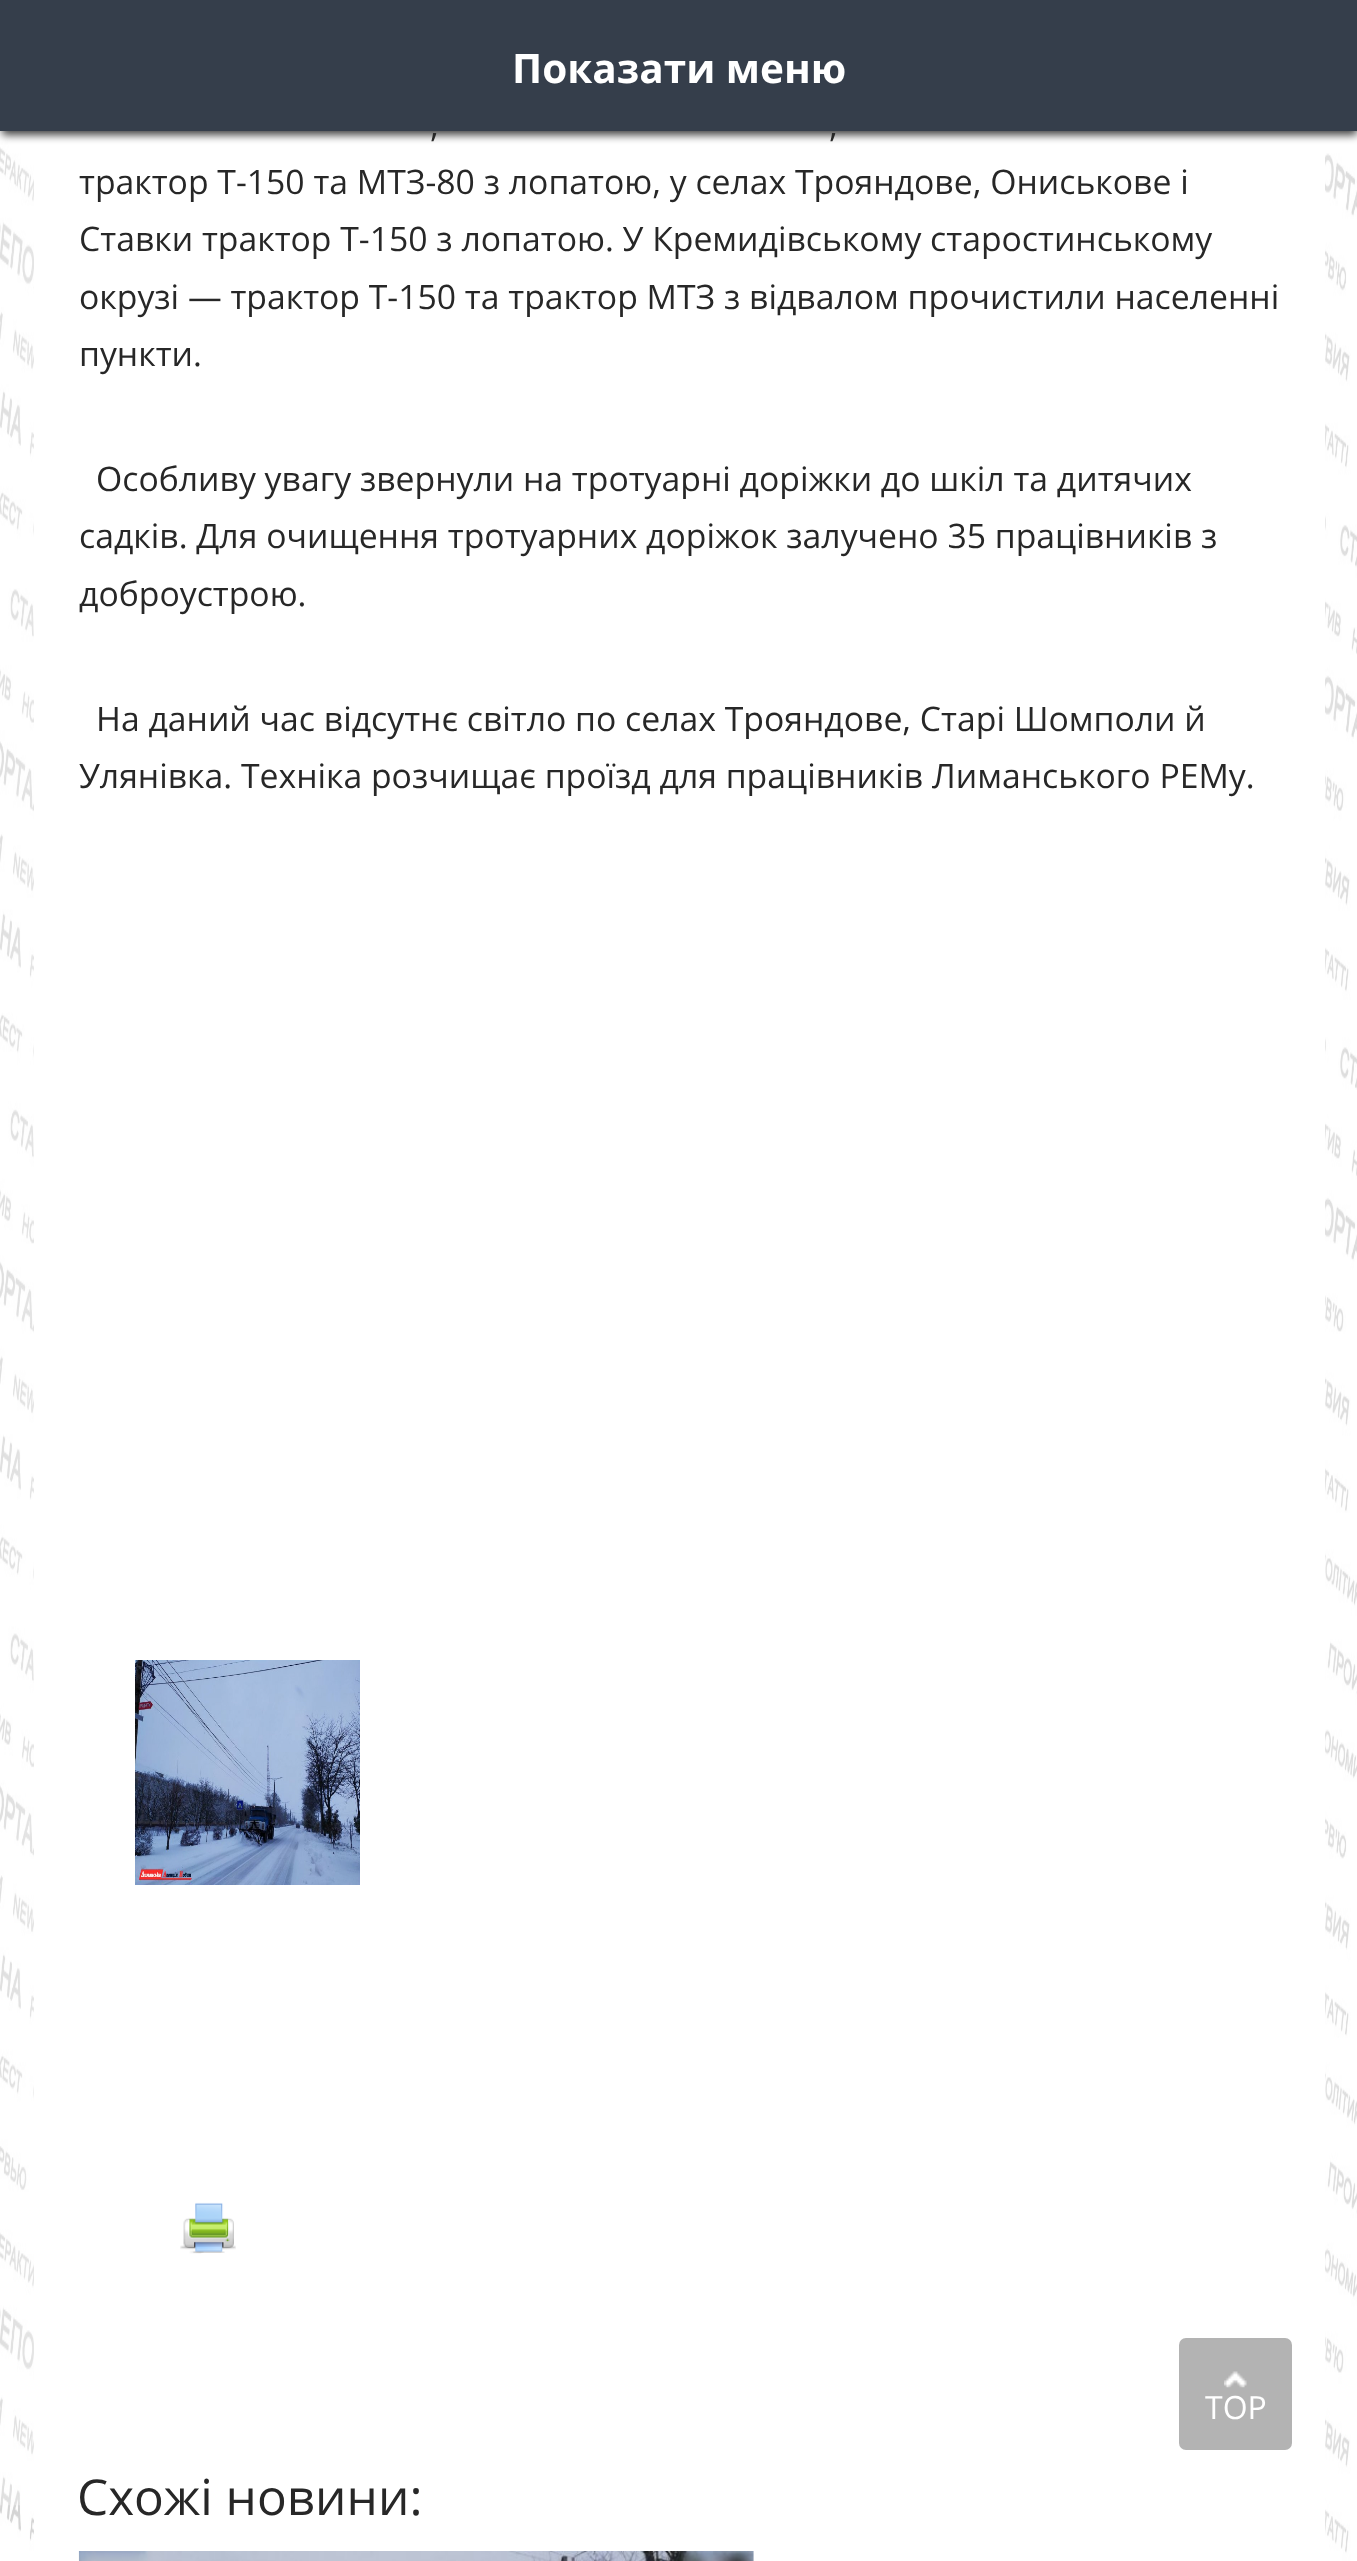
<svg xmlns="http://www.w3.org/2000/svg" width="1357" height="2561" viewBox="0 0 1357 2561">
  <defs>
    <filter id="blur1" x="-50%" y="-200%" width="200%" height="500%"><feGaussianBlur stdDeviation="4.5"/></filter>
  </defs>
  <rect width="100%" height="100%" fill="#ffffff"/>
  <image x="0" y="131" width="1357" height="2430" href="img1.png"/>
  <rect x="34" y="131" width="1291" height="2430" fill="#ffffff"/>
  <rect x="2" y="9" width="1355" height="126" fill="#000000" fill-opacity="0.75" filter="url(#blur1)"/>
  <rect x="0" y="0" width="1357" height="131" fill="#353e4b"/>
  <text x="512" y="83" font-family="Open Sans" font-size="40.5" font-weight="bold" fill="#ffffff">Показати меню</text>
  <text x="430" y="137" font-family="Open Sans" font-size="33.75" fill="#272727">,</text>
  <text x="829" y="137" font-family="Open Sans" font-size="33.75" fill="#272727">,</text>
  <text x="79" y="194" font-family="Open Sans" font-size="33.75" fill="#272727">трактор Т-150 та МТЗ-80 з лопатою, у селах Трояндове, Ониськове і</text>
  <text x="79" y="251" font-family="Open Sans" font-size="33.75" fill="#272727">Ставки трактор Т-150 з лопатою. У Кремидівському старостинському</text>
  <text x="79" y="309" font-family="Open Sans" font-size="33.75" fill="#272727">окрузі — трактор Т-150 та трактор МТЗ з відвалом прочистили населенні</text>
  <text x="79" y="366" font-family="Open Sans" font-size="33.75" fill="#272727">пункти.</text>
  <text x="96" y="491" font-family="Open Sans" font-size="33.75" fill="#272727">Особливу увагу звернули на тротуарні доріжки до шкіл та дитячих</text>
  <text x="79" y="548" font-family="Open Sans" font-size="33.75" fill="#272727">садків. Для очищення тротуарних доріжок залучено 35 працівників з</text>
  <text x="79" y="606" font-family="Open Sans" font-size="33.75" fill="#272727">доброустрою.</text>
  <text x="96" y="731" font-family="Open Sans" font-size="33.75" fill="#272727">На даний час відсутнє світло по селах Трояндове, Старі Шомполи й</text>
  <text x="79" y="788" font-family="Open Sans" font-size="33.75" fill="#272727">Улянівка. Техніка розчищає проїзд для працівників Лиманського РЕМу.</text>
  <image x="135" y="1660" width="225" height="225" href="img2.png"/>
  <image x="180" y="2202" width="56" height="52" href="img3.png"/>
  <text x="77" y="2515" font-family="Open Sans" font-size="49.5" fill="#272727">Схожі новини:</text>
  <image x="78" y="2551" width="676" height="10" href="img4.png"/>
  <rect x="1179" y="2338" width="113" height="112" rx="7" fill="#b3b3b3"/>
  <image x="1224" y="2371" width="23" height="17" href="img5.png"/>
  <text x="1205" y="2419" font-family="Open Sans" font-size="32" fill="#ffffff">TOP</text>
</svg>
